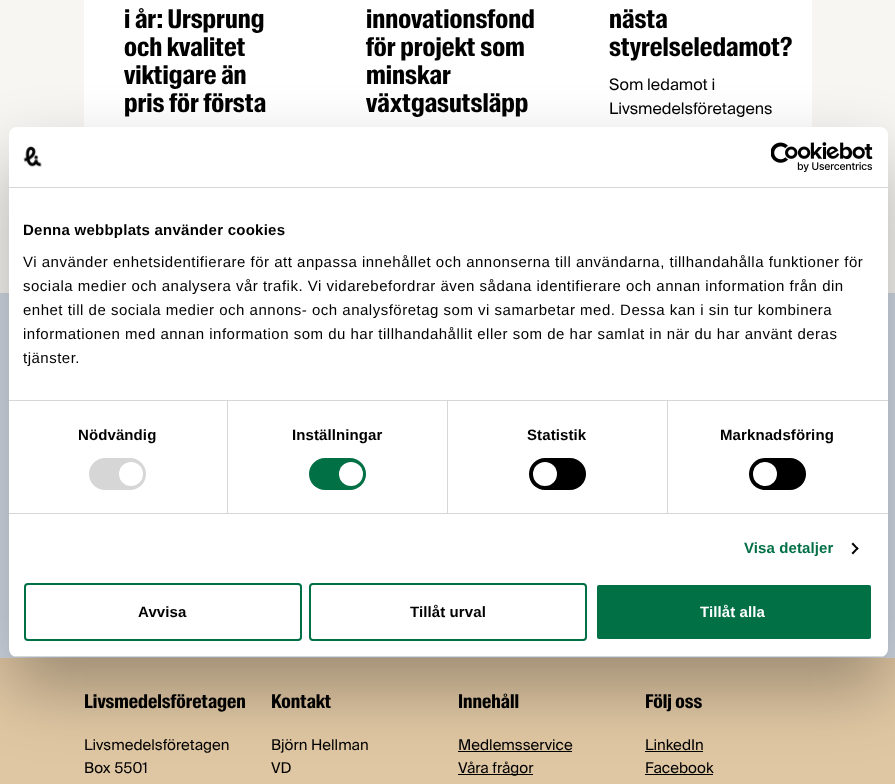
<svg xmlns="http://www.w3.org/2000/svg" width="895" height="784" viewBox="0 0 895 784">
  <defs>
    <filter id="blur1" x="-50%" y="-200%" width="200%" height="500%"><feGaussianBlur stdDeviation="34"/></filter>
    <clipPath id="clip1"><rect x="9" y="127" width="879" height="530" rx="8"/></clipPath>
  </defs>
  <rect width="100%" height="100%" fill="#f8f6f2"/>
  <rect x="84" y="0" width="728" height="127" fill="#ffffff"/>
  <text x="124" y="28" font-family="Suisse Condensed" font-size="26" font-weight="bold" fill="#000000">i år: Ursprung</text>
  <text x="124" y="56" font-family="Suisse Condensed" font-size="26" font-weight="bold" fill="#000000">och kvalitet</text>
  <text x="124" y="84" font-family="Suisse Condensed" font-size="26" font-weight="bold" fill="#000000">viktigare än</text>
  <text x="124" y="112" font-family="Suisse Condensed" font-size="26" font-weight="bold" fill="#000000">pris för första</text>
  <text x="366" y="28" font-family="Suisse Condensed" font-size="26" font-weight="bold" fill="#000000">innovationsfond</text>
  <text x="366" y="56" font-family="Suisse Condensed" font-size="26" font-weight="bold" fill="#000000">för projekt som</text>
  <text x="366" y="84" font-family="Suisse Condensed" font-size="26" font-weight="bold" fill="#000000">minskar</text>
  <text x="366" y="112" font-family="Suisse Condensed" font-size="26" font-weight="bold" fill="#000000">växtgasutsläpp</text>
  <text x="609" y="28" font-family="Suisse Condensed" font-size="26" font-weight="bold" fill="#000000">nästa</text>
  <text x="609" y="56" font-family="Suisse Condensed" font-size="26" font-weight="bold" fill="#000000">styrelseledamot?</text>
  <text x="609" y="90" font-family="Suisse" font-size="16" fill="#000000">Som ledamot i</text>
  <text x="609" y="114" font-family="Suisse" font-size="16" fill="#000000">Livsmedelsföretagens</text>
  <rect x="0" y="293" width="895" height="365" fill="#d1d9e3"/>
  <rect x="0" y="658" width="895" height="126" fill="#e0c7a3"/>
  <text x="84" y="708" font-family="Suisse Condensed" font-size="19" font-weight="bold" fill="#000000">Livsmedelsföretagen</text>
  <text x="84" y="750" font-family="Suisse" font-size="15" fill="#000000">Livsmedelsföretagen</text>
  <text x="84" y="773" font-family="Suisse" font-size="15" fill="#000000">Box 5501</text>
  <text x="271" y="708" font-family="Suisse Condensed" font-size="19" font-weight="bold" fill="#000000">Kontakt</text>
  <text x="271" y="750" font-family="Suisse" font-size="15" fill="#000000">Björn Hellman</text>
  <text x="271" y="773" font-family="Suisse" font-size="15" fill="#000000">VD</text>
  <text x="458" y="708" font-family="Suisse Condensed" font-size="19" font-weight="bold" fill="#000000">Innehåll</text>
  <text x="458" y="750" font-family="Suisse" font-size="15" fill="#000000">Medlemsservice</text>
  <rect x="458" y="751" width="114" height="1" fill="#000000"/>
  <rect x="458" y="774" width="75" height="1" fill="#000000"/>
  <text x="458" y="773" font-family="Suisse" font-size="15" fill="#000000">Våra frågor</text>
  <text x="645" y="708" font-family="Suisse Condensed" font-size="19" font-weight="bold" fill="#000000">Följ oss</text>
  <text x="645" y="750" font-family="Suisse" font-size="15" fill="#000000">LinkedIn</text>
  <rect x="645" y="751" width="58" height="1" fill="#000000"/>
  <text x="645" y="773" font-family="Suisse" font-size="15" fill="#000000">Facebook</text>
  <rect x="645" y="774" width="68" height="1" fill="#000000"/>
  <rect x="9" y="159" width="879" height="530" rx="8" fill="#000000" fill-opacity="0.3" filter="url(#blur1)"/>
  <rect x="9" y="127" width="879" height="530" rx="8" fill="#ffffff"/>
  <rect x="9" y="187" width="879" height="1" fill="#d6d6d6"/>
  <image x="23" y="146" width="19" height="21" href="img1.png"/>
  <image x="771" y="142" width="102" height="30" href="img2.png"/>
  <rect x="9" y="400" width="879" height="1" fill="#d6d6d6"/>
  <text x="23" y="235" font-family="Liberation Sans" font-size="15" font-weight="bold" letter-spacing="0.25" fill="#000000">Denna webbplats använder cookies</text>
  <text x="23" y="267" font-family="Liberation Sans" font-size="15" letter-spacing="0.5" fill="#000000">Vi använder enhetsidentifierare för att anpassa innehållet och annonserna till användarna, tillhandahålla funktioner för</text>
  <text x="23" y="291" font-family="Liberation Sans" font-size="15" letter-spacing="0.5" fill="#000000">sociala medier och analysera vår trafik. Vi vidarebefordrar även sådana identifierare och annan information från din</text>
  <text x="23" y="315" font-family="Liberation Sans" font-size="15" letter-spacing="0.5" fill="#000000">enhet till de sociala medier och annons- och analysföretag som vi samarbetar med. Dessa kan i sin tur kombinera</text>
  <text x="23" y="339" font-family="Liberation Sans" font-size="15" letter-spacing="0.5" fill="#000000">informationen med annan information som du har tillhandahållit eller som de har samlat in när du har använt deras</text>
  <text x="23" y="363" font-family="Liberation Sans" font-size="15" letter-spacing="0.5" fill="#000000">tjänster.</text>
  <rect x="9" y="513" width="879" height="1" fill="#d6d6d6"/>
  <rect x="227" y="401" width="1" height="112" fill="#d6d6d6"/>
  <text x="78" y="440" font-family="Liberation Sans" font-size="15" font-weight="bold" letter-spacing="0.1" fill="#000000">Nödvändig</text>
  <rect x="89" y="458" width="57" height="32" rx="16" fill="#d6d6d6"/>
  <circle cx="131" cy="474" r="12" fill="#ffffff"/>
  <rect x="447" y="401" width="1" height="112" fill="#d6d6d6"/>
  <text x="292" y="440" font-family="Liberation Sans" font-size="15" font-weight="bold" letter-spacing="0.1" fill="#000000">Inställningar</text>
  <rect x="309" y="458" width="57" height="32" rx="16" fill="#017045"/>
  <circle cx="351" cy="474" r="12" fill="#ffffff"/>
  <rect x="667" y="401" width="1" height="112" fill="#d6d6d6"/>
  <text x="527" y="440" font-family="Liberation Sans" font-size="15" font-weight="bold" letter-spacing="0.1" fill="#000000">Statistik</text>
  <rect x="529" y="458" width="57" height="32" rx="16" fill="#000000"/>
  <circle cx="545" cy="474" r="12" fill="#ffffff"/>
  <text x="720" y="440" font-family="Liberation Sans" font-size="15" font-weight="bold" letter-spacing="0.1" fill="#000000">Marknadsföring</text>
  <rect x="749" y="458" width="57" height="32" rx="16" fill="#000000"/>
  <circle cx="765" cy="474" r="12" fill="#ffffff"/>
  <text x="744" y="553" font-family="Liberation Sans" font-size="15" font-weight="bold" letter-spacing="0.1" fill="#017045">Visa detaljer</text>
  <path d="M853 542.5L858.5 548.5L857.5 550L851.5 544Z" fill="#000000"/>
  <path d="M857.5 547L858.5 548.5L853 554.5L851.5 553Z" fill="#000000"/>
  <g clip-path="url(#clip1)">
    <rect x="9" y="656" width="879" height="1" fill="#d6d6d6"/>
  </g>
  <rect x="25" y="584" width="276" height="56" rx="3" fill="none" stroke="#017045" stroke-width="2"/>
  <text x="138" y="617" font-family="Liberation Sans" font-size="15" font-weight="bold" letter-spacing="0.1" fill="#000000">Avvisa</text>
  <rect x="310" y="584" width="276" height="56" rx="3" fill="none" stroke="#017045" stroke-width="2"/>
  <text x="410" y="617" font-family="Liberation Sans" font-size="15" font-weight="bold" letter-spacing="0.1" fill="#000000">Tillåt urval</text>
  <rect x="596" y="584" width="276" height="56" rx="3" fill="#017045" stroke="#ffffff" stroke-width="2"/>
  <text x="700" y="617" font-family="Liberation Sans" font-size="15" font-weight="bold" letter-spacing="0.1" fill="#ffffff">Tillåt alla</text>
</svg>
